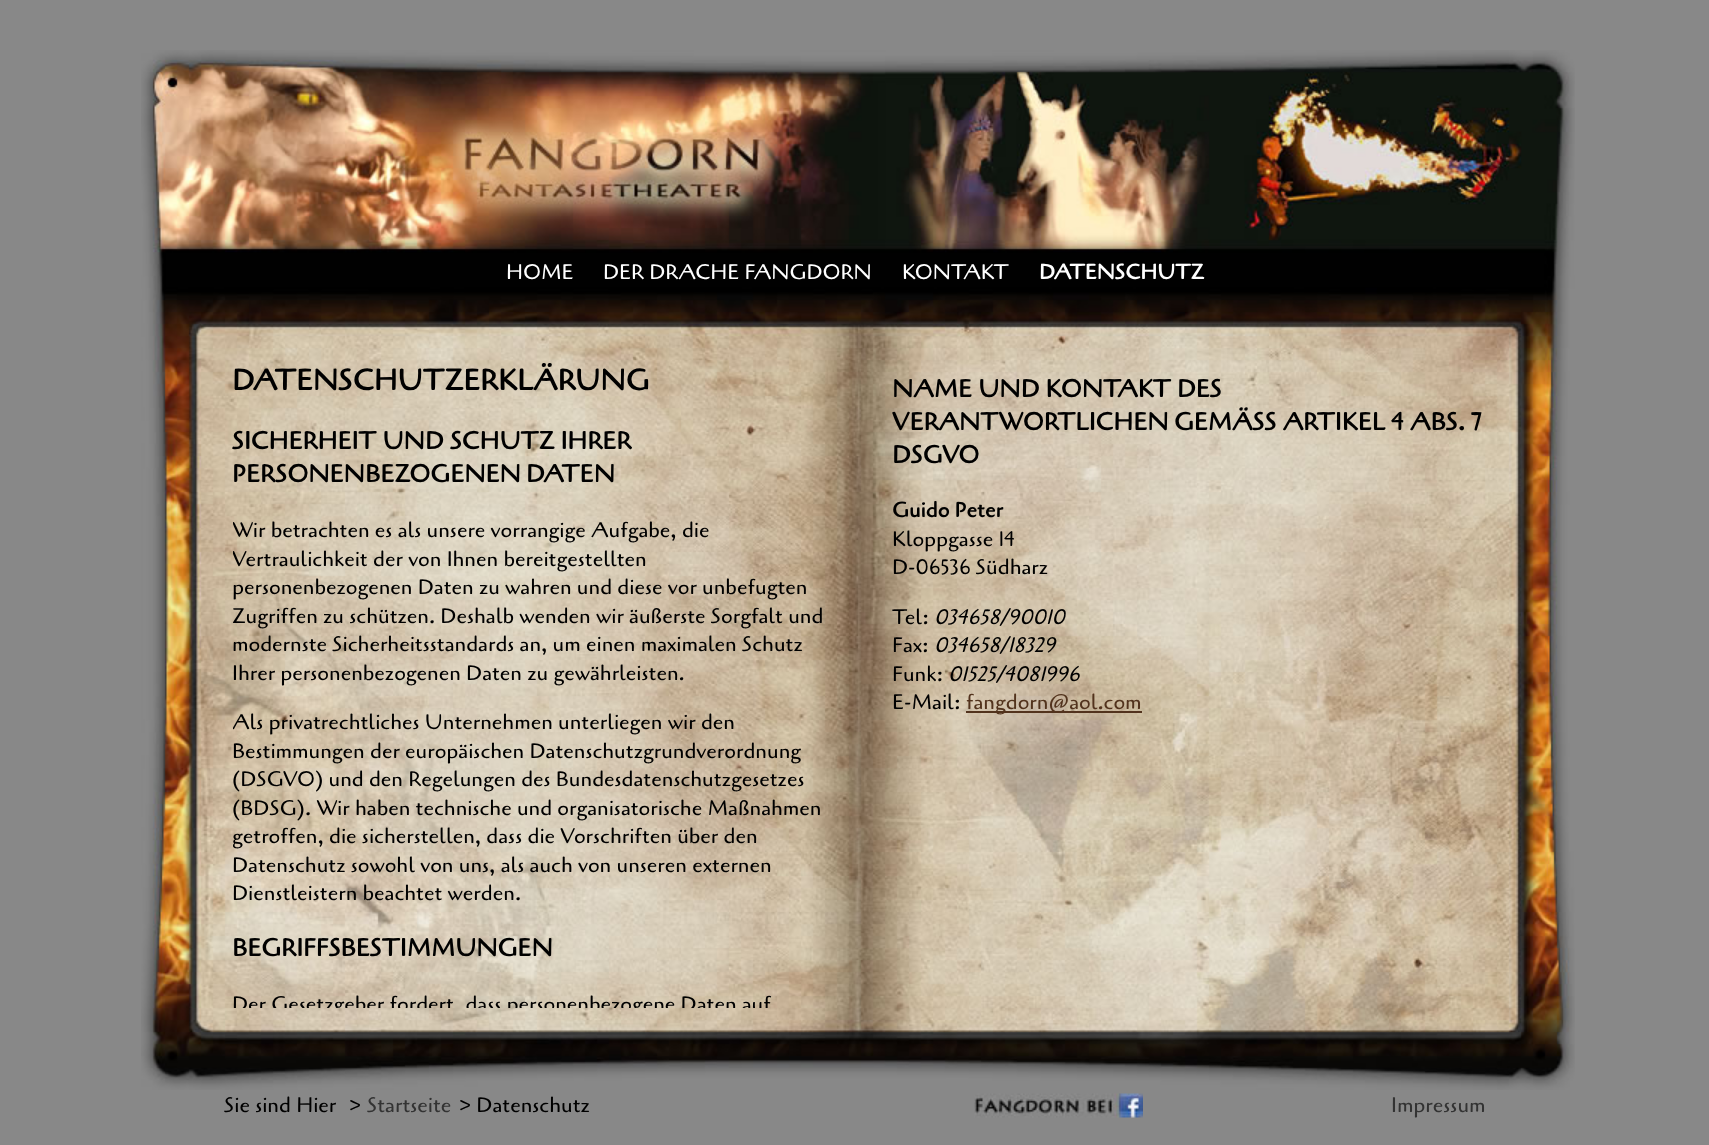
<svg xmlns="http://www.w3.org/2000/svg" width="1709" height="1145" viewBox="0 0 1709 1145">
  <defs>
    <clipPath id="clip1"><rect x="233" y="348" width="600" height="660"/></clipPath>
  </defs>
  <rect width="100%" height="100%" fill="#888888"/>
  <image x="141" y="50" width="1434" height="1040" href="img1.png"/>
  <text x="506" y="279" font-family="Cagliostro" font-size="21" fill="#ffffff">HOME</text>
  <text x="603" y="279" font-family="Cagliostro" font-size="21" fill="#ffffff">DER DRACHE FANGDORN</text>
  <text x="902" y="279" font-family="Cagliostro" font-size="21" fill="#ffffff">KONTAKT</text>
  <text x="1039" y="279" font-family="Cagliostro" font-size="21" font-weight="bold" fill="#ffffff">DATENSCHUTZ</text>
  <text x="232" y="390" font-family="Cagliostro" font-size="29.4" font-weight="bold" fill="#000000">DATENSCHUTZERKLÄRUNG</text>
  <text x="232" y="449" font-family="Cagliostro" font-size="24.6" font-weight="bold" fill="#000000">SICHERHEIT UND SCHUTZ IHRER</text>
  <text x="232" y="482" font-family="Cagliostro" font-size="24.6" font-weight="bold" fill="#000000">PERSONENBEZOGENEN</text>
  <text x="526" y="482" font-family="Cagliostro" font-size="24.6" font-weight="bold" fill="#000000">DATEN</text>
  <g clip-path="url(#clip1)">
    <text x="232" y="537" font-family="Cagliostro" font-size="21" fill="#000000">Wir betrachten es als unsere vorrangige Aufgabe, die</text>
    <text x="232" y="566" font-family="Cagliostro" font-size="21" fill="#000000">Vertraulichkeit der von Ihnen bereitgestellten</text>
  </g>
  <text x="232" y="594" font-family="Cagliostro" font-size="21" fill="#000000">personenbezogenen Daten zu wahren und diese vor unbefugten</text>
  <text x="232" y="623" font-family="Cagliostro" font-size="21" fill="#000000">Zugriffen zu schützen. Deshalb wenden wir äußerste Sorgfalt und</text>
  <text x="232" y="651" font-family="Cagliostro" font-size="21" fill="#000000">modernste Sicherheitsstandards an, um einen maximalen Schutz</text>
  <text x="232" y="680" font-family="Cagliostro" font-size="21" fill="#000000">Ihrer personenbezogenen Daten zu gewährleisten.</text>
  <g clip-path="url(#clip1)">
    <text x="232" y="729" font-family="Cagliostro" font-size="21" fill="#000000">Als privatrechtliches Unternehmen unterliegen wir den</text>
  </g>
  <text x="232" y="758" font-family="Cagliostro" font-size="21" fill="#000000">Bestimmungen der europäischen Datenschutzgrundverordnung</text>
  <text x="232" y="786" font-family="Cagliostro" font-size="21" fill="#000000">(DSGVO) und den Regelungen des Bundesdatenschutzgesetzes</text>
  <text x="232" y="815" font-family="Cagliostro" font-size="21" fill="#000000">(BDSG). Wir haben technische und organisatorische Maßnahmen</text>
  <g clip-path="url(#clip1)">
    <text x="232" y="843" font-family="Cagliostro" font-size="21" fill="#000000">getroffen, die sicherstellen, dass die Vorschriften über den</text>
  </g>
  <text x="232" y="872" font-family="Cagliostro" font-size="21" fill="#000000">Datenschutz sowohl von uns, als auch von unseren externen</text>
  <text x="232" y="900" font-family="Cagliostro" font-size="21" fill="#000000">Dienstleistern beachtet werden.</text>
  <text x="232" y="956" font-family="Cagliostro" font-size="24.6" font-weight="bold" fill="#000000">BEGRIFFSBESTIMMUNGEN</text>
  <g clip-path="url(#clip1)">
    <text x="232" y="1011" font-family="Cagliostro" font-size="21" fill="#000000">Der Gesetzgeber fordert, dass personenbezogene Daten auf</text>
  </g>
  <text x="892" y="397" font-family="Cagliostro" font-size="24.6" font-weight="bold" fill="#000000">NAME UND KONTAKT DES</text>
  <text x="892" y="430" font-family="Cagliostro" font-size="24.6" font-weight="bold" fill="#000000">VERANTWORTLICHEN</text>
  <text x="1174" y="430" font-family="Cagliostro" font-size="24.6" font-weight="bold" fill="#000000">GEMÄSS ARTIKEL 4 ABS. 7</text>
  <text x="892" y="463" font-family="Cagliostro" font-size="24.6" font-weight="bold" fill="#000000">DSGVO</text>
  <text x="892" y="517" font-family="Cagliostro" font-size="21" font-weight="bold" fill="#000000">Guido Peter</text>
  <text x="892" y="546" font-family="Cagliostro" font-size="21" fill="#000000">Kloppgasse 14</text>
  <text x="892" y="574" font-family="Cagliostro" font-size="21" fill="#000000">D-06536 Südharz</text>
  <text x="892" y="624" font-family="Cagliostro" font-size="21" fill="#000000">Tel:</text>
  <text x="934" y="624" font-family="Cagliostro" font-size="21" font-style="italic" fill="#000000">034658/90010</text>
  <text x="892" y="652" font-family="Cagliostro" font-size="21" fill="#000000">Fax:</text>
  <text x="934" y="652" font-family="Cagliostro" font-size="21" font-style="italic" fill="#000000">034658/18329</text>
  <text x="892" y="681" font-family="Cagliostro" font-size="21" fill="#000000">Funk:</text>
  <text x="948" y="681" font-family="Cagliostro" font-size="21" font-style="italic" fill="#000000">01525/4081996</text>
  <text x="892" y="709" font-family="Cagliostro" font-size="21" fill="#000000">E-Mail:</text>
  <rect x="966" y="711" width="176" height="2" fill="#52331d"/>
  <text x="966" y="709" font-family="Cagliostro" font-size="21" fill="#52331d">fangdorn@aol.com</text>
  <text x="224" y="1112" font-family="Cagliostro" font-size="21" fill="#000000">Sie sind Hier</text>
  <text x="349" y="1112" font-family="Cagliostro" font-size="21" fill="#000000">&gt;</text>
  <text x="367" y="1112" font-family="Cagliostro" font-size="21" fill="#333333">Startseite</text>
  <text x="459" y="1112" font-family="Cagliostro" font-size="21" fill="#000000">&gt; Datenschutz</text>
  <image x="974" y="1093" width="169" height="25" href="img2.png"/>
  <text x="1391" y="1112" font-family="Cagliostro" font-size="21" fill="#333333">Impressum</text>
</svg>
